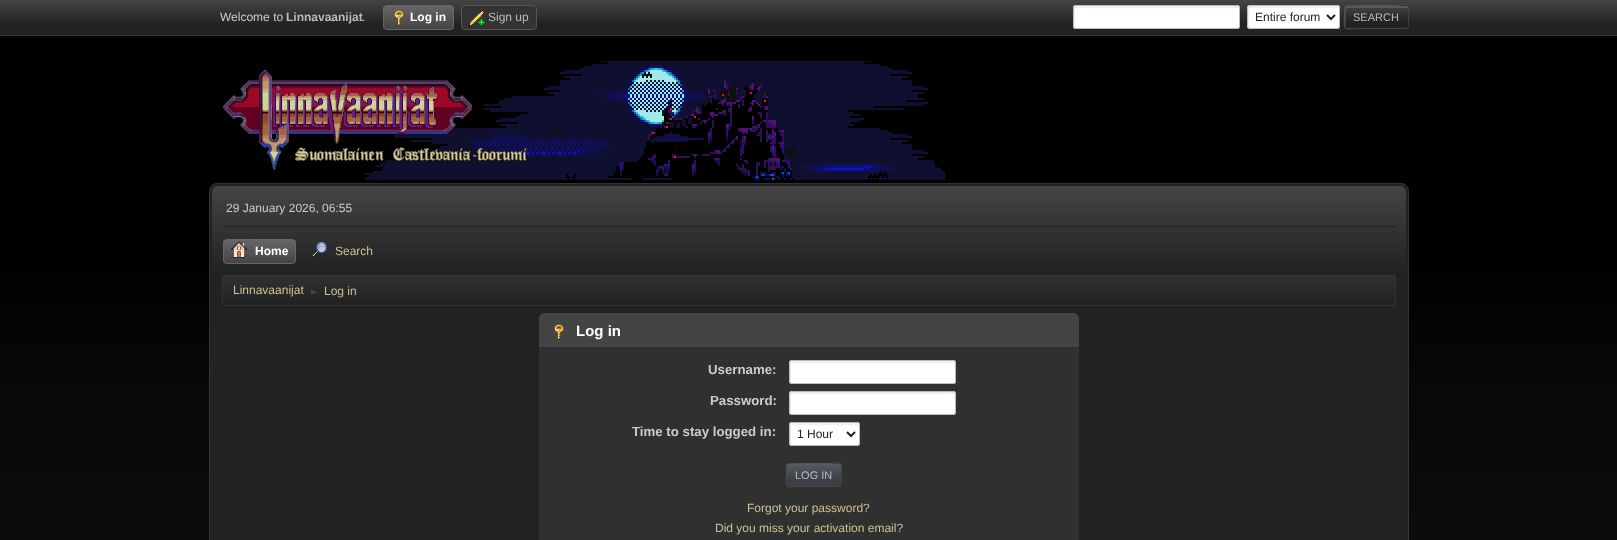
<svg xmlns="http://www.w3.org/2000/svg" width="1617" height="540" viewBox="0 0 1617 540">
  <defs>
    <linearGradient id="g1" gradientUnits="userSpaceOnUse" x1="809" y1="0" x2="809" y2="35"><stop offset="0" stop-color="#444444"/><stop offset="0.7" stop-color="#222222"/></linearGradient>
    <clipPath id="clip1"><rect x="383" y="5" width="71" height="25" rx="4"/></clipPath>
    <linearGradient id="g2" gradientUnits="userSpaceOnUse" x1="419" y1="6" x2="419" y2="29"><stop offset="0" stop-color="#666666"/><stop offset="1" stop-color="#444444"/></linearGradient>
    <clipPath id="clip2"><rect x="1344" y="5" width="65" height="24" rx="3"/></clipPath>
    <linearGradient id="g3" gradientUnits="userSpaceOnUse" x1="1377" y1="-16" x2="1377" y2="6"><stop offset="0" stop-color="#444444"/><stop offset="0.7" stop-color="#222222"/></linearGradient>
    <linearGradient id="g4" gradientUnits="userSpaceOnUse" x1="1377" y1="6" x2="1377" y2="28"><stop offset="0" stop-color="#444444"/><stop offset="0.7" stop-color="#222222"/></linearGradient>
    <linearGradient id="g5" gradientUnits="userSpaceOnUse" x1="1377" y1="28" x2="1377" y2="50"><stop offset="0" stop-color="#444444"/><stop offset="0.7" stop-color="#222222"/></linearGradient>
    <linearGradient id="g6" gradientUnits="userSpaceOnUse" x1="809" y1="186" x2="809" y2="308"><stop offset="0" stop-color="#444444"/><stop offset="0.7" stop-color="#222222"/></linearGradient>
    <clipPath id="clip3"><rect x="223" y="239" width="73" height="25" rx="4"/></clipPath>
    <linearGradient id="g7" gradientUnits="userSpaceOnUse" x1="260" y1="240" x2="260" y2="263"><stop offset="0" stop-color="#666666"/><stop offset="1" stop-color="#444444"/></linearGradient>
    <clipPath id="clip4"><rect x="222" y="275" width="1174" height="31" rx="2"/></clipPath>
    <linearGradient id="g8" gradientUnits="userSpaceOnUse" x1="809" y1="276" x2="809" y2="305"><stop offset="0" stop-color="#313131"/><stop offset="0.95" stop-color="#222222"/></linearGradient>
    <clipPath id="clip5"><rect x="786" y="463" width="56" height="24" rx="3"/></clipPath>
    <linearGradient id="g9" gradientUnits="userSpaceOnUse" x1="814" y1="442" x2="814" y2="464"><stop offset="0" stop-color="#444444"/><stop offset="0.7" stop-color="#222222"/></linearGradient>
    <linearGradient id="g10" gradientUnits="userSpaceOnUse" x1="814" y1="464" x2="814" y2="486"><stop offset="0" stop-color="#444444"/><stop offset="0.7" stop-color="#222222"/></linearGradient>
    <linearGradient id="g11" gradientUnits="userSpaceOnUse" x1="814" y1="486" x2="814" y2="508"><stop offset="0" stop-color="#444444"/><stop offset="0.7" stop-color="#222222"/></linearGradient>
  </defs>
  <rect width="100%" height="100%" fill="#ffffff"/>
  <image x="0" y="36" width="1617" height="504" href="img1.png"/>
  <rect x="0" y="0" width="1617" height="35" fill="url(#g1)"/>
  <rect x="0" y="35" width="1617" height="1" fill="#333333"/>
  <text x="220" y="21" font-family="Liberation Sans" font-size="12" fill="#cccccc">Welcome to</text>
  <text x="286" y="21" font-family="Liberation Sans" font-size="12" font-weight="bold" fill="#bbbbbb">Linnavaanijat</text>
  <text x="362" y="21" font-family="Liberation Sans" font-size="12" fill="#cccccc">.</text>
  <g clip-path="url(#clip1)">
    <rect x="383" y="6" width="71" height="23" fill="url(#g2)"/>
  </g>
  <rect x="383.5" y="5.5" width="70" height="24" rx="3.5" fill="none" stroke="#666666"/>
  <image x="394" y="10" width="10" height="16" href="img2.png"/>
  <text x="410" y="21" font-family="Liberation Sans" font-size="12" font-weight="bold" fill="#ffffff">Log in</text>
  <rect x="461.5" y="5.5" width="75" height="24" rx="3.5" fill="#333333" stroke="#555555"/>
  <image x="469" y="10" width="16" height="16" href="img3.png"/>
  <text x="488" y="21" font-family="Liberation Sans" font-size="12" fill="#bbbbbb">Sign up</text>
  <rect x="1073" y="5" width="167" height="24" rx="3" fill="#ffffff"/>
  <path d="M1077 8H1239V7L1237 6H1076C1075 6 1074 7 1074 8C1074 11 1073 27 1075 28V10C1075 9 1076 8 1077 8Z" fill="#ecf1f8"/>
  <rect x="1073.5" y="5.5" width="166" height="23" rx="2.5" fill="none" stroke="#bbbbbb"/>
  <rect x="1247" y="5" width="93" height="24" rx="3" fill="#ffffff"/>
  <path d="M1251 8H1339C1339 3 1327 6 1322 6H1264C1246 6 1248 2 1248 17C1248 19 1247 27 1249 28V10C1249 9 1250 8 1251 8Z" fill="#ecf1f8"/>
  <rect x="1247.5" y="5.5" width="92" height="23" rx="2.5" fill="none" stroke="#bbbbbb"/>
  <path d="M1327 15L1331 19L1335 15" fill="none" stroke="#222222" stroke-width="2"/>
  <text x="1255" y="21" font-family="Liberation Sans" font-size="12" fill="#222222">Entire forum</text>
  <g clip-path="url(#clip2)">
    <rect x="1344" y="5" width="65" height="1" fill="url(#g3)"/>
    <rect x="1344" y="6" width="65" height="22" fill="url(#g4)"/>
    <rect x="1344" y="28" width="65" height="1" fill="url(#g5)"/>
  </g>
  <path d="M1348 8H1408C1408 7 1408 6 1406 6H1357C1348 6 1345 3 1345 11C1345 14 1344 26 1346 28V10C1346 9 1347 8 1348 8Z" fill="#a0bbdd" fill-opacity="0.2"/>
  <path d="M1408 6C1409.5 8 1408.5 15 1408.5 17C1408.5 30.5 1410.5 28.5 1396 28.5H1357C1353 28.5 1348 30.5 1345 28" fill="none" stroke="#444444"/>
  <path d="M1345 28C1343.5 26 1344.5 19 1344.5 17C1344.5 3.5 1342.5 5.5 1357 5.5H1396C1400 5.5 1405 3.5 1408 6" fill="none" stroke="#555555"/>
  <text x="1353" y="21" font-family="Liberation Sans" font-size="11" fill="#bbbbbb">SEARCH</text>
  <image x="223" y="61" width="722" height="119" href="img4.png"/>
  <rect x="209.5" y="183.5" width="1199" height="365" rx="7.5" fill="#222222" stroke="#333333"/>
  <path d="M218 186H1400C1403.5 186 1406 188.5 1406 192V308H212V192C212 188.5 214.5 186 218 186Z" fill="url(#g6)"/>
  <rect x="222" y="226" width="1174" height="1" fill="#222222"/>
  <text x="226" y="212" font-family="Liberation Sans" font-size="12" fill="#cccccc">29 January 2026, 06:55</text>
  <g clip-path="url(#clip3)">
    <rect x="223" y="240" width="73" height="23" fill="url(#g7)"/>
  </g>
  <rect x="223.5" y="239.5" width="72" height="24" rx="3.5" fill="none" stroke="#666666"/>
  <image x="231" y="242" width="16" height="16" href="img5.png"/>
  <text x="255" y="255" font-family="Liberation Sans" font-size="12" font-weight="bold" fill="#ffffff">Home</text>
  <image x="312" y="242" width="15" height="15" href="img6.png"/>
  <text x="335" y="255" font-family="Liberation Sans" font-size="12" fill="#cbc292">Search</text>
  <g clip-path="url(#clip4)">
    <rect x="222" y="276" width="1174" height="29" fill="url(#g8)"/>
  </g>
  <rect x="222.5" y="275.5" width="1173" height="30" rx="1.5" fill="none" stroke="#333333"/>
  <text x="233" y="294" font-family="Liberation Sans" font-size="12" fill="#cbc292">Linnavaanijat</text>
  <text x="309" y="295" font-family="Liberation Sans" font-size="10" fill="#444444">►</text>
  <text x="324" y="295" font-family="Liberation Sans" font-size="12" fill="#cbc292">Log in</text>
  <path d="M545 313H1073C1076.5 313 1079 315.5 1079 319V348H539V319C539 315.5 541.5 313 545 313Z" fill="#444444"/>
  <image x="554" y="324" width="10" height="16" href="img7.png"/>
  <text x="576" y="336" font-family="Liberation Sans" font-size="15" font-weight="bold" fill="#ffffff">Log in</text>
  <rect x="539" y="347" width="540" height="193" fill="#303030"/>
  <text x="708" y="374" font-family="Liberation Sans" font-size="13.25" font-weight="bold" fill="#cccccc">Username:</text>
  <rect x="789" y="360" width="167" height="24" rx="3" fill="#ffffff"/>
  <path d="M793 363H955V362L953 361H792C791 361 790 362 790 363C790 366 789 382 791 383V365C791 364 792 363 793 363Z" fill="#ecf1f8"/>
  <rect x="789.5" y="360.5" width="166" height="23" rx="2.5" fill="none" stroke="#bbbbbb"/>
  <text x="710" y="405" font-family="Liberation Sans" font-size="13.25" font-weight="bold" fill="#cccccc">Password:</text>
  <rect x="789" y="391" width="167" height="24" rx="3" fill="#ffffff"/>
  <path d="M793 394H955V393L953 392H792C791 392 790 393 790 394C790 397 789 413 791 414V396C791 395 792 394 793 394Z" fill="#ecf1f8"/>
  <rect x="789.5" y="391.5" width="166" height="23" rx="2.5" fill="none" stroke="#bbbbbb"/>
  <text x="632" y="436" font-family="Liberation Sans" font-size="13.25" font-weight="bold" fill="#cccccc">Time to stay logged in:</text>
  <rect x="789" y="422" width="71" height="24" rx="3" fill="#ffffff"/>
  <path d="M793 425H859V424C857 421 846 423 846 423H803C786 423 790 421 790 437C790 439 789 443 791 445V427C791 426 792 425 793 425Z" fill="#ecf1f8"/>
  <rect x="789.5" y="422.5" width="70" height="23" rx="2.5" fill="none" stroke="#bbbbbb"/>
  <path d="M847 432L851 436L855 432" fill="none" stroke="#222222" stroke-width="2"/>
  <text x="797" y="438" font-family="Liberation Sans" font-size="12" fill="#222222">1 Hour</text>
  <g clip-path="url(#clip5)">
    <rect x="786" y="463" width="56" height="1" fill="url(#g9)"/>
    <rect x="786" y="464" width="56" height="22" fill="url(#g10)"/>
    <rect x="786" y="486" width="56" height="1" fill="url(#g11)"/>
  </g>
  <path d="M789 464C786 464 787 470 787 472V481C787 488 789 486 797 486H839C843 486 841 477 841 475C841 473 843 464 839 464Z" fill="#a0bbdd" fill-opacity="0.2"/>
  <path d="M841 464C842.5 466 841.5 473 841.5 475C841.5 488 843.5 486.5 830.5 486.5H797.5C794 486.5 789.5 488 787 486" fill="none" stroke="#444444"/>
  <path d="M787 486C785.5 484 786.5 477 786.5 475C786.5 462 784.5 463.5 797.5 463.5H830.5C834 463.5 838.5 462 841 464" fill="none" stroke="#555555"/>
  <text x="795" y="479" font-family="Liberation Sans" font-size="11" fill="#bbbbbb">LOG IN</text>
  <text x="747" y="512" font-family="Liberation Sans" font-size="12" fill="#cbc292">Forgot your password?</text>
  <text x="715" y="532" font-family="Liberation Sans" font-size="12" fill="#cbc292">Did you miss your activation email?</text>
</svg>
